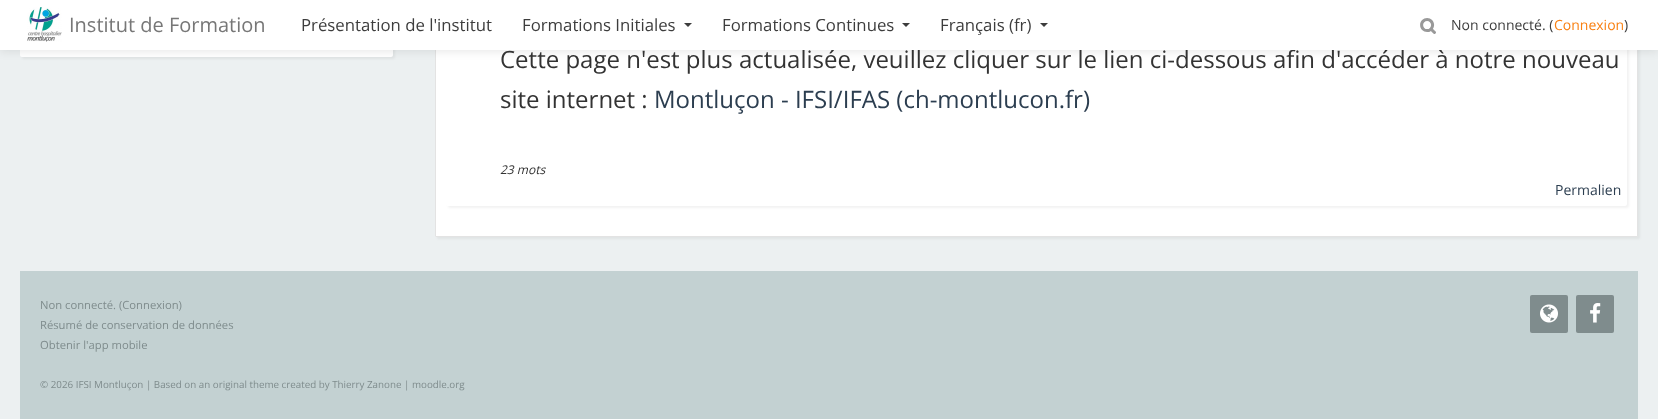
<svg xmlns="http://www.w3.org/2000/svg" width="1658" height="419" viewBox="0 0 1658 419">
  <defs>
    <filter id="blur1" x="-50%" y="-200%" width="200%" height="500%"><feGaussianBlur stdDeviation="1"/></filter>
    <filter id="blur2" x="-50%" y="-200%" width="200%" height="500%"><feGaussianBlur stdDeviation="5"/></filter>
  </defs>
  <rect width="100%" height="100%" fill="#ecf0f1"/>
  <rect x="22" y="-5" width="373" height="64" rx="2" fill="#000000" fill-opacity="0.05" filter="url(#blur1)"/>
  <rect x="20" y="-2" width="373" height="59" rx="2" fill="#ffffff"/>
  <rect x="437" y="-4" width="1203" height="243" rx="1" fill="#000000" fill-opacity="0.05" filter="url(#blur1)"/>
  <rect x="435.5" y="-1.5" width="1202" height="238" rx="0.5" fill="#ffffff" stroke="#e3e3e3"/>
  <rect x="448" y="-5" width="1181" height="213" rx="2" fill="#000000" fill-opacity="0.05" filter="url(#blur1)"/>
  <rect x="446" y="-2" width="1181" height="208" rx="2" fill="#ffffff"/>
  <rect x="0" y="1" width="1658" height="50" fill="#000000" fill-opacity="0.1" filter="url(#blur2)"/>
  <text x="500" y="68" font-family="Open Sans" font-size="24" fill="#333333">Cette page n'est plus actualisée, veuillez cliquer sur le lien ci-dessous afin d'accéder à notre nouveau</text>
  <rect x="0" y="0" width="1658" height="50" fill="#ffffff"/>
  <image x="27" y="7" width="35" height="35" href="img1.png"/>
  <text x="69" y="32" font-family="Open Sans" font-size="20" fill="#777777">Institut de Formation</text>
  <text x="301" y="31" font-family="Open Sans" font-size="16.75" fill="#3d3d3d">Présentation de l'institut</text>
  <text x="522" y="31" font-family="Open Sans" font-size="16.75" fill="#3d3d3d">Formations Initiales</text>
  <path d="M684 23H692L688 27Z" fill="#3d3d3d"/>
  <text x="722" y="31" font-family="Open Sans" font-size="16.75" fill="#3d3d3d">Formations Continues</text>
  <path d="M902 23H910L906 27Z" fill="#3d3d3d"/>
  <text x="940" y="31" font-family="Open Sans" font-size="16.75" fill="#3d3d3d">Français (fr)</text>
  <path d="M1040 23H1048L1044 27Z" fill="#3d3d3d"/>
  <image x="1420" y="18" width="16" height="16" href="img2.png"/>
  <text x="1451" y="30" font-family="Open Sans" font-size="14" fill="#3d3d3d">Non connecté. (</text>
  <text x="1554" y="30" font-family="Open Sans" font-size="14" fill="#f98012">Connexion</text>
  <text x="1624" y="30" font-family="Open Sans" font-size="14" fill="#3d3d3d">)</text>
  <text x="500" y="108" font-family="Open Sans" font-size="24" fill="#333333">site internet :</text>
  <text x="654" y="108" font-family="Open Sans" font-size="24" fill="#2c3e50">Montluçon - IFSI/IFAS (ch-montlucon.fr)</text>
  <text x="500" y="174" font-family="Open Sans" font-size="12" font-style="italic" fill="#333333">23 mots</text>
  <text x="1555" y="195" font-family="Open Sans" font-size="14" fill="#2c3e50">Permalien</text>
  <rect x="20" y="271" width="1618" height="148" fill="#c3d1d2"/>
  <text x="40" y="309" font-family="Open Sans" font-size="11.25" fill="#7f8c8d">Non connecté. (Connexion)</text>
  <text x="40" y="329" font-family="Open Sans" font-size="11.25" fill="#7f8c8d">Résumé de conservation de données</text>
  <text x="40" y="349" font-family="Open Sans" font-size="11.25" fill="#7f8c8d">Obtenir l'app mobile</text>
  <rect x="1530" y="295" width="38" height="38" rx="2" fill="#7f8c8d"/>
  <image x="1540" y="304" width="18" height="19" href="img3.png"/>
  <rect x="1576" y="295" width="38" height="38" rx="2" fill="#7f8c8d"/>
  <image x="1590" y="303" width="11" height="20" href="img4.png"/>
  <text x="40" y="388" font-family="Open Sans" font-size="9.8" fill="#7f8c8d">© 2026 IFSI Montluçon | Based on an original theme created by Thierry Zanone | moodle.org</text>
</svg>
